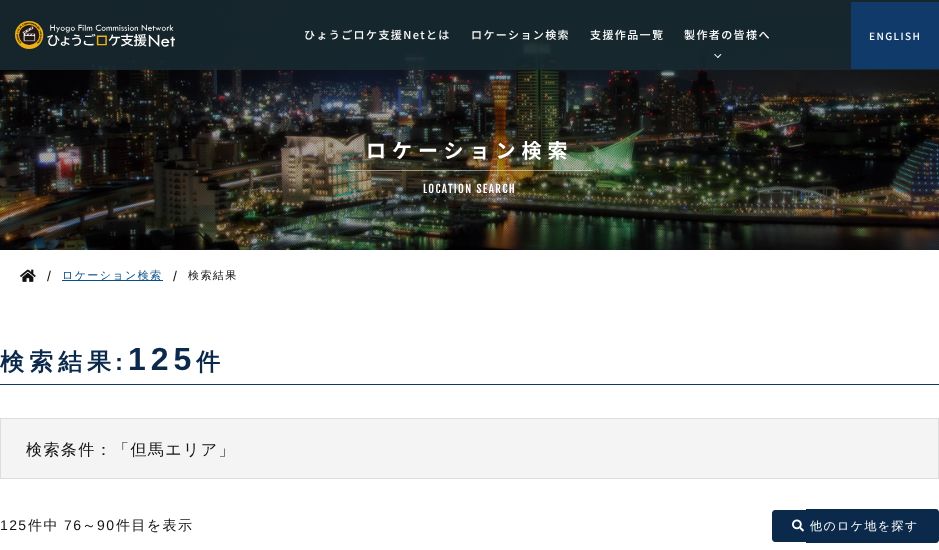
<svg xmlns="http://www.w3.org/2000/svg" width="939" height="550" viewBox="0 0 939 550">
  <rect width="100%" height="100%" fill="#ffffff"/>
  <image x="0" y="0" width="939" height="250" href="img2.png"/>
  <rect x="0" y="0" width="939" height="70" fill="#172930" fill-opacity="0.9"/>
  <image x="15" y="21" width="160" height="28" href="img1.png"/>
  <text x="304" y="39" font-family="Noto Sans JP" font-size="11" font-weight="500" letter-spacing="1.4" fill="#ffffff">ひょうごロケ支援Netとは</text>
  <text x="471" y="39" font-family="Noto Sans JP" font-size="11" font-weight="500" letter-spacing="1.4" fill="#ffffff">ロケーション検索</text>
  <text x="590" y="39" font-family="Noto Sans JP" font-size="11" font-weight="500" letter-spacing="1.4" fill="#ffffff">支援作品一覧</text>
  <text x="684" y="39" font-family="Noto Sans JP" font-size="11" font-weight="500" letter-spacing="1.4" fill="#ffffff">製作者の皆様へ</text>
  <path d="M720.5 54L721.5 54.5L718 58L717 57.5Z" fill="#ffffff"/>
  <path d="M715 54L718.5 57.5L718 58L714 54.5Z" fill="#ffffff"/>
  <rect x="851" y="2" width="88" height="67" fill="#0f3a6a"/>
  <text x="869" y="40" font-family="Noto Sans JP" font-size="10" font-weight="500" letter-spacing="1.4" fill="#ffffff">ENGLISH</text>
  <rect x="346" y="170" width="247" height="1" fill="#ffffff" fill-opacity="0.5"/>
  <text x="366" y="158" font-family="Noto Sans JP" font-size="20" font-weight="bold" letter-spacing="6" fill="#ffffff">ロケーション検索</text>
  <text x="423" y="193" font-family="Fjalla One" font-size="11" letter-spacing="1.4" fill="#ffffff">LOCATION SEARCH</text>
  <image x="20" y="269" width="16" height="13" href="img3.png"/>
  <text x="47" y="281" font-family="Liberation Sans" font-size="14" letter-spacing="1.4" fill="#111111">/</text>
  <rect x="62" y="280" width="101" height="1" fill="#084e87"/>
  <text x="62" y="279" font-family="WenQuanYi Zen Hei" font-size="11" font-weight="500" letter-spacing="1.4" fill="#084e87">ロケーション検索</text>
  <text x="173" y="281" font-family="Liberation Sans" font-size="14" letter-spacing="1.4" fill="#111111">/</text>
  <text x="188" y="279" font-family="WenQuanYi Zen Hei" font-size="11" font-weight="500" letter-spacing="1.4" fill="#111111">検索結果</text>
  <rect x="0" y="384" width="939" height="1" fill="#0f3866"/>
  <text x="0" y="370" font-family="WenQuanYi Zen Hei" font-size="24" font-weight="bold" letter-spacing="5" fill="#0b2a4b">検索結果</text>
  <text x="115" y="370" font-family="Liberation Sans" font-size="24" font-weight="bold" letter-spacing="5" fill="#0b2a4b">:</text>
  <text x="128" y="370" font-family="Liberation Sans" font-size="32" font-weight="bold" letter-spacing="5" fill="#0b2a4b">125</text>
  <text x="196" y="370" font-family="WenQuanYi Zen Hei" font-size="24" font-weight="bold" letter-spacing="5" fill="#0b2a4b">件</text>
  <rect x="0.5" y="418.5" width="938" height="60" fill="#f4f4f4" stroke="#dddddd"/>
  <text x="26" y="455" font-family="WenQuanYi Zen Hei" font-size="16" font-weight="500" letter-spacing="1.4" fill="#111111">検索条件：「但馬エリア」</text>
  <text x="0" y="530" font-family="Liberation Sans" font-size="14" letter-spacing="1.4" fill="#111111">125</text>
  <text x="28" y="530" font-family="WenQuanYi Zen Hei" font-size="14" font-weight="500" letter-spacing="1.4" fill="#111111">件中</text>
  <text x="64" y="530" font-family="Liberation Sans" font-size="14" letter-spacing="1.4" fill="#111111">76</text>
  <text x="82" y="530" font-family="WenQuanYi Zen Hei" font-size="14" font-weight="500" letter-spacing="1.4" fill="#111111">～</text>
  <text x="97" y="530" font-family="Liberation Sans" font-size="14" letter-spacing="1.4" fill="#111111">90</text>
  <text x="116" y="530" font-family="WenQuanYi Zen Hei" font-size="14" font-weight="500" letter-spacing="1.4" fill="#111111">件目を表示</text>
  <path d="M775 510H806V542H775C773.5 542 772 540.5 772 539V513C772 511.5 773.5 510 775 510Z" fill="#0b2a4b"/>
  <path d="M806 509H936C937.5 509 939 510.5 939 512V540C939 541.5 937.5 543 936 543H806Z" fill="#0b2a4b"/>
  <image x="792" y="519" width="12" height="13" href="img4.png"/>
  <text x="810" y="530" font-family="WenQuanYi Zen Hei" font-size="12" font-weight="500" letter-spacing="1.4" fill="#ffffff">他のロケ地を探す</text>
</svg>
